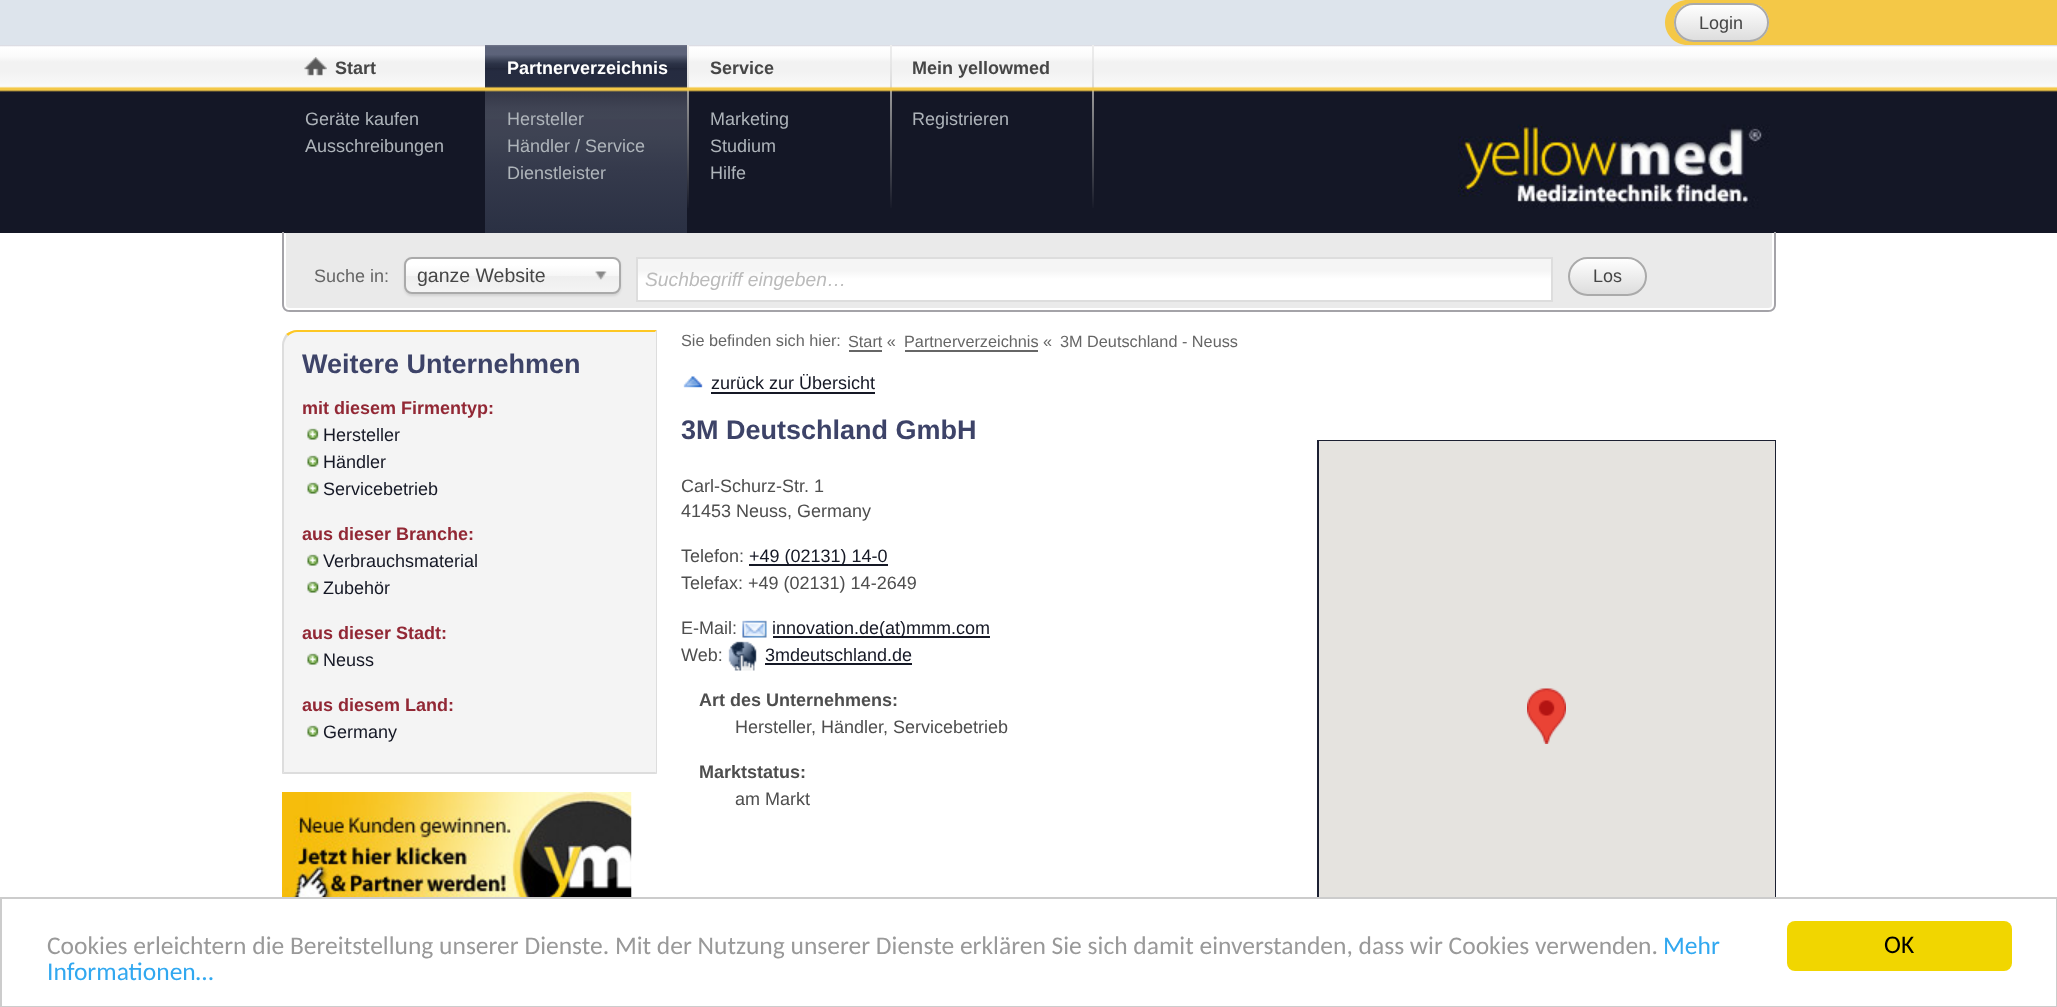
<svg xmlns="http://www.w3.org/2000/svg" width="2057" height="1007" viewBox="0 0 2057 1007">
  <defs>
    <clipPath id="clip1"><rect x="1674" y="3" width="95" height="39" rx="19.5"/></clipPath>
    <linearGradient id="g1" gradientUnits="userSpaceOnUse" x1="1721" y1="4.5" x2="1721" y2="41"><stop offset="0" stop-color="#ffffff"/><stop offset="1" stop-color="#dddddd"/></linearGradient>
    <linearGradient id="g2" gradientUnits="userSpaceOnUse" x1="1029" y1="45" x2="1029" y2="233"><stop offset="0" stop-color="#d1d1da"/><stop offset="0.01" stop-color="#ffffff"/><stop offset="0.06" stop-color="#fbfbfb"/><stop offset="0.09" stop-color="#f2f2f2"/><stop offset="0.14" stop-color="#f2f2f2"/><stop offset="0.2" stop-color="#f7f7f7"/><stop offset="0.22" stop-color="#fbfbfb"/><stop offset="0.22" stop-color="#fafafa"/><stop offset="0.23" stop-color="#f4c847"/><stop offset="0.24" stop-color="#f4c847"/><stop offset="0.25" stop-color="#141726"/><stop offset="0.82" stop-color="#141726"/></linearGradient>
    <linearGradient id="g3" gradientUnits="userSpaceOnUse" x1="586" y1="45" x2="586" y2="233"><stop offset="0" stop-color="#74788d"/><stop offset="0.01" stop-color="#5d647a"/><stop offset="0.05" stop-color="#5d637a"/><stop offset="0.06" stop-color="#535a70"/><stop offset="0.08" stop-color="#3d4458"/><stop offset="0.1" stop-color="#2b3246"/><stop offset="0.12" stop-color="#262c3f"/><stop offset="0.12" stop-color="#212639"/><stop offset="0.14" stop-color="#252b40"/><stop offset="0.22" stop-color="#262c40"/><stop offset="0.23" stop-color="#f4c847"/><stop offset="0.24" stop-color="#f4c847"/><stop offset="0.25" stop-color="#333847"/><stop offset="0.26" stop-color="#363949"/><stop offset="0.34" stop-color="#404454"/><stop offset="0.39" stop-color="#414655"/><stop offset="0.4" stop-color="#404354"/><stop offset="0.48" stop-color="#3e4353"/><stop offset="0.66" stop-color="#353a4c"/><stop offset="1" stop-color="#2a3043"/></linearGradient>
    <linearGradient id="g4" gradientUnits="userSpaceOnUse" x1="688" y1="45" x2="688" y2="233"><stop offset="0" stop-color="#eeeeee"/><stop offset="0.22" stop-color="#dddddd"/><stop offset="0.23" stop-color="#f4c847"/><stop offset="0.24" stop-color="#f4c847"/><stop offset="0.25" stop-color="#989898"/><stop offset="0.88" stop-color="#141726"/><stop offset="1" stop-color="#141726"/></linearGradient>
    <linearGradient id="g5" gradientUnits="userSpaceOnUse" x1="890" y1="45" x2="890" y2="233"><stop offset="0" stop-color="#eeeeee"/><stop offset="0.22" stop-color="#dddddd"/><stop offset="0.23" stop-color="#f4c847"/><stop offset="0.24" stop-color="#f4c847"/><stop offset="0.25" stop-color="#989898"/><stop offset="0.88" stop-color="#141726"/><stop offset="1" stop-color="#141726"/></linearGradient>
    <linearGradient id="g6" gradientUnits="userSpaceOnUse" x1="1093" y1="45" x2="1093" y2="233"><stop offset="0" stop-color="#eeeeee"/><stop offset="0.22" stop-color="#dddddd"/><stop offset="0.23" stop-color="#f4c847"/><stop offset="0.24" stop-color="#f4c847"/><stop offset="0.25" stop-color="#989898"/><stop offset="0.88" stop-color="#141726"/><stop offset="1" stop-color="#141726"/></linearGradient>
    <filter id="blur1" x="-50%" y="-200%" width="200%" height="500%"><feGaussianBlur stdDeviation="1"/></filter>
    <linearGradient id="g7" gradientUnits="userSpaceOnUse" x1="512" y1="258" x2="512" y2="293"><stop offset="0.2" stop-color="#ffffff"/><stop offset="0.5" stop-color="#f6f6f6"/><stop offset="0.52" stop-color="#eeeeee"/><stop offset="1" stop-color="#f4f4f4"/></linearGradient>
    <linearGradient id="g8" gradientUnits="userSpaceOnUse" x1="1094" y1="258" x2="1094" y2="300"><stop offset="0.3" stop-color="#f5f5f5"/><stop offset="0.5" stop-color="#ffffff"/></linearGradient>
    <clipPath id="clip2"><rect x="1568" y="257" width="79" height="39" rx="19.5"/></clipPath>
    <linearGradient id="g9" gradientUnits="userSpaceOnUse" x1="1607" y1="258" x2="1607" y2="294"><stop offset="0" stop-color="#ffffff"/><stop offset="1" stop-color="#dddddd"/></linearGradient>
  </defs>
  <rect width="100%" height="100%" fill="#ffffff"/>
  <rect x="0" y="0" width="1687" height="45" fill="#dde4ec"/>
  <rect x="1776" y="0" width="281" height="45" fill="#f4c847"/>
  <path d="M1687.5 0H1776V45H1687.5C1675 45 1665 35 1665 22.5C1665 10 1675 0 1687.5 0Z" fill="#f4c847"/>
  <g clip-path="url(#clip1)">
    <rect x="1674" y="5" width="95" height="36" fill="url(#g1)"/>
  </g>
  <rect x="1675" y="4" width="93" height="37" rx="18.5" fill="none" stroke="#aaaaaa" stroke-width="2"/>
  <text x="1699" y="29" font-family="Liberation Sans" font-size="18" fill="#464646">Login</text>
  <rect x="0" y="45" width="2057" height="188" fill="url(#g2)"/>
  <image x="304" y="57" width="23" height="19" href="img1.png"/>
  <text x="335" y="74" font-family="Liberation Sans" font-size="18" font-weight="bold" fill="#464646">Start</text>
  <text x="305" y="125" font-family="Liberation Sans" font-size="18" fill="#aeb4ba">Geräte kaufen</text>
  <text x="305" y="152" font-family="Liberation Sans" font-size="18" fill="#aeb4ba">Ausschreibungen</text>
  <rect x="485" y="45" width="202" height="188" fill="url(#g3)"/>
  <text x="507" y="74" font-family="Liberation Sans" font-size="18" font-weight="bold" fill="#ffffff">Partnerverzeichnis</text>
  <rect x="687" y="45" width="2" height="163" fill="url(#g4)"/>
  <text x="507" y="125" font-family="Liberation Sans" font-size="18" fill="#aeb4ba">Hersteller</text>
  <text x="507" y="152" font-family="Liberation Sans" font-size="18" fill="#aeb4ba">Händler / Service</text>
  <text x="507" y="179" font-family="Liberation Sans" font-size="18" fill="#aeb4ba">Dienstleister</text>
  <text x="710" y="74" font-family="Liberation Sans" font-size="18" font-weight="bold" fill="#464646">Service</text>
  <rect x="890" y="45" width="2" height="163" fill="url(#g5)"/>
  <text x="710" y="125" font-family="Liberation Sans" font-size="18" fill="#aeb4ba">Marketing</text>
  <text x="710" y="152" font-family="Liberation Sans" font-size="18" fill="#aeb4ba">Studium</text>
  <text x="710" y="179" font-family="Liberation Sans" font-size="18" fill="#aeb4ba">Hilfe</text>
  <text x="912" y="74" font-family="Liberation Sans" font-size="18" font-weight="bold" fill="#464646">Mein yellowmed</text>
  <rect x="1092" y="45" width="2" height="163" fill="url(#g6)"/>
  <text x="912" y="125" font-family="Liberation Sans" font-size="18" fill="#aeb4ba">Registrieren</text>
  <image x="1458" y="124" width="312" height="85" href="img2.png"/>
  <path d="M282 233H1776V304C1776 308.5 1772.5 312 1768 312H290C285.5 312 282 308.5 282 304Z" fill="#eaeaea"/>
  <path d="M284 233V305C284 308 287 311 290 311H1769C1770 311 1771 311 1772 310H292C289 310 286 308 286 304V233Z" fill="#ffffff"/>
  <path d="M284 302V305C284 308 287 311 290 311H1769C1772 311 1775 308 1775 305V233H1774V302C1774 305 1772 308 1768 308H290C286 308 284 305 284 302Z" fill="#ffffff"/>
  <path d="M287 310C288 311 289 311 290 311H1769C1772 311 1775 308 1775 305V233H1772V304C1772 308 1769 310 1766 310Z" fill="#ffffff"/>
  <path d="M282 232H1776V304C1776 309 1773 312 1768 312H290C285 312 282 309 282 304ZM284 232H1774V304C1774 308 1772 310 1768 310H290C286 310 284 308 284 304Z" fill="#a4a3a8" fill-rule="evenodd"/>
  <text x="314" y="282" font-family="Liberation Sans" font-size="18" fill="#666666">Suche in:</text>
  <rect x="404" y="258" width="217" height="38" rx="8" fill="#000000" fill-opacity="0.1" filter="url(#blur1)"/>
  <rect x="405" y="258" width="215" height="35" rx="6" fill="url(#g7)"/>
  <rect x="405" y="258" width="215" height="35" rx="7" fill="none" stroke="#aaaaaa" stroke-width="2"/>
  <text x="417" y="282" font-family="Liberation Sans" font-size="19.5" fill="#464646">ganze Website</text>
  <image x="595" y="271" width="12" height="9" href="img3.png"/>
  <rect x="638" y="259" width="913" height="41" fill="url(#g8)"/>
  <rect x="637" y="258" width="915" height="43" fill="none" stroke="#dddddd" stroke-width="2"/>
  <text x="645" y="286" font-family="Liberation Sans" font-size="19.25" font-style="italic" fill="#bbbbbb">Suchbegriff eingeben…</text>
  <g clip-path="url(#clip2)">
    <rect x="1568" y="258" width="79" height="36" fill="url(#g9)"/>
  </g>
  <rect x="1569" y="258" width="77" height="37" rx="18.5" fill="none" stroke="#aaaaaa" stroke-width="2"/>
  <text x="1593" y="282" font-family="Liberation Sans" font-size="18" fill="#464646">Los</text>
  <path d="M297 330H657V774H282V345C282 336.5 288.5 330 297 330Z" fill="#f4f4f4"/>
  <path d="M297 330C293 330 289 332 286 334L288 336C290 334 294 332 297 332H655L657 330Z" fill="#fdc724"/>
  <path d="M657 330L655 332H656V772H655L657 774Z" fill="#dddddd"/>
  <path d="M657 774L655 772H284L282 774Z" fill="#dddddd"/>
  <path d="M282 774L284 772V345C284 342 286 338 288 336L286 334C284 337 282 341 282 345Z" fill="#dddddd"/>
  <text x="302" y="373" font-family="Liberation Sans" font-size="27" font-weight="bold" fill="#3d4368">Weitere Unternehmen</text>
  <text x="302" y="414" font-family="Liberation Sans" font-size="18" font-weight="bold" fill="#922835">mit diesem Firmentyp:</text>
  <image x="307" y="428" width="12" height="12" href="img4.png"/>
  <text x="323" y="441" font-family="Liberation Sans" font-size="18" fill="#151825">Hersteller</text>
  <image x="307" y="455" width="12" height="12" href="img5.png"/>
  <text x="323" y="468" font-family="Liberation Sans" font-size="18" fill="#151825">Händler</text>
  <image x="307" y="482" width="12" height="12" href="img6.png"/>
  <text x="323" y="495" font-family="Liberation Sans" font-size="18" fill="#151825">Servicebetrieb</text>
  <text x="302" y="540" font-family="Liberation Sans" font-size="18" font-weight="bold" fill="#922835">aus dieser Branche:</text>
  <image x="307" y="554" width="12" height="12" href="img7.png"/>
  <text x="323" y="567" font-family="Liberation Sans" font-size="18" fill="#151825">Verbrauchsmaterial</text>
  <image x="307" y="581" width="12" height="12" href="img8.png"/>
  <text x="323" y="594" font-family="Liberation Sans" font-size="18" fill="#151825">Zubehör</text>
  <text x="302" y="639" font-family="Liberation Sans" font-size="18" font-weight="bold" fill="#922835">aus dieser Stadt:</text>
  <image x="307" y="653" width="12" height="12" href="img5.png"/>
  <text x="323" y="666" font-family="Liberation Sans" font-size="18" fill="#151825">Neuss</text>
  <text x="302" y="711" font-family="Liberation Sans" font-size="18" font-weight="bold" fill="#922835">aus diesem Land:</text>
  <image x="307" y="725" width="12" height="12" href="img9.png"/>
  <text x="323" y="738" font-family="Liberation Sans" font-size="18" fill="#151825">Germany</text>
  <image x="282" y="792" width="350" height="105" href="img10.png"/>
  <text x="681" y="346" font-family="Liberation Sans" font-size="16.25" fill="#666666">Sie befinden sich hier:</text>
  <text x="848" y="347" font-family="Liberation Sans" font-size="16.25" fill="#666666">Start «</text>
  <rect x="849" y="350" width="33" height="2" fill="#666666"/>
  <text x="904" y="347" font-family="Liberation Sans" font-size="16.25" fill="#666666">Partnerverzeichnis «</text>
  <rect x="905" y="350" width="133" height="2" fill="#666666"/>
  <text x="1060" y="347" font-family="Liberation Sans" font-size="16.25" fill="#666666">3M Deutschland - Neuss</text>
  <image x="683" y="376" width="20" height="12" href="img11.png"/>
  <text x="711" y="389" font-family="Liberation Sans" font-size="18" fill="#151825">zurück zur Übersicht</text>
  <rect x="711" y="392" width="164" height="2" fill="#151825"/>
  <text x="681" y="439" font-family="Liberation Sans" font-size="27" font-weight="bold" fill="#3d4368">3M Deutschland GmbH</text>
  <text x="681" y="492" font-family="Liberation Sans" font-size="18" fill="#4e4e4e">Carl-Schurz-Str. 1</text>
  <text x="681" y="517" font-family="Liberation Sans" font-size="18" fill="#4e4e4e">41453 Neuss, Germany</text>
  <text x="681" y="562" font-family="Liberation Sans" font-size="18" fill="#4e4e4e">Telefon:</text>
  <rect x="749" y="564" width="139" height="2" fill="#151825"/>
  <text x="749" y="562" font-family="Liberation Sans" font-size="18" fill="#151825">+49 (02131) 14-0</text>
  <text x="681" y="589" font-family="Liberation Sans" font-size="18" fill="#4e4e4e">Telefax: +49 (02131) 14-2649</text>
  <text x="681" y="634" font-family="Liberation Sans" font-size="18" fill="#4e4e4e">E-Mail:</text>
  <image x="742" y="620" width="25" height="18" href="img12.png"/>
  <rect x="773" y="636" width="217" height="2" fill="#151825"/>
  <text x="772" y="634" font-family="Liberation Sans" font-size="18" fill="#151825">innovation.de(at)mmm.com</text>
  <text x="681" y="661" font-family="Liberation Sans" font-size="18" fill="#4e4e4e">Web:</text>
  <image x="728" y="641" width="29" height="30" href="img13.png"/>
  <text x="765" y="661" font-family="Liberation Sans" font-size="18" fill="#151825">3mdeutschland.de</text>
  <rect x="765" y="663" width="147" height="2" fill="#151825"/>
  <rect x="1318" y="441" width="457" height="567" fill="none" stroke="#1c2032" stroke-width="2"/>
  <rect x="1319" y="441" width="456" height="456" fill="#e5e3df"/>
  <image x="1527" y="688" width="39" height="56" href="img14.png"/>
  <text x="699" y="706" font-family="Liberation Sans" font-size="18" font-weight="bold" fill="#4e4e4e">Art des Unternehmens:</text>
  <text x="735" y="733" font-family="Liberation Sans" font-size="18" fill="#4e4e4e">Hersteller, Händler, Servicebetrieb</text>
  <text x="699" y="778" font-family="Liberation Sans" font-size="18" font-weight="bold" fill="#4e4e4e">Marktstatus:</text>
  <text x="735" y="805" font-family="Liberation Sans" font-size="18" fill="#4e4e4e">am Markt</text>
  <rect x="1317" y="899" width="459" height="107" fill="#ffffff"/>
  <rect x="1" y="898" width="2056" height="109" fill="none" stroke="#cccccc" stroke-width="2"/>
  <text x="47" y="954" font-family="Carlito" font-size="25.5" fill="#999999">Cookies erleichtern die Bereitstellung unserer Dienste. Mit der Nutzung unserer Dienste erklären Sie sich damit einverstanden, dass wir Cookies verwenden.</text>
  <text x="1663" y="954" font-family="Carlito" font-size="25.5" fill="#31a8f0">Mehr</text>
  <text x="47" y="980" font-family="Carlito" font-size="25.5" fill="#31a8f0">Informationen…</text>
  <rect x="1787" y="921" width="225" height="50" rx="8" fill="#f1d600"/>
  <text x="1884" y="953" font-family="Carlito" font-size="25.5" fill="#000000">OK</text>
</svg>
